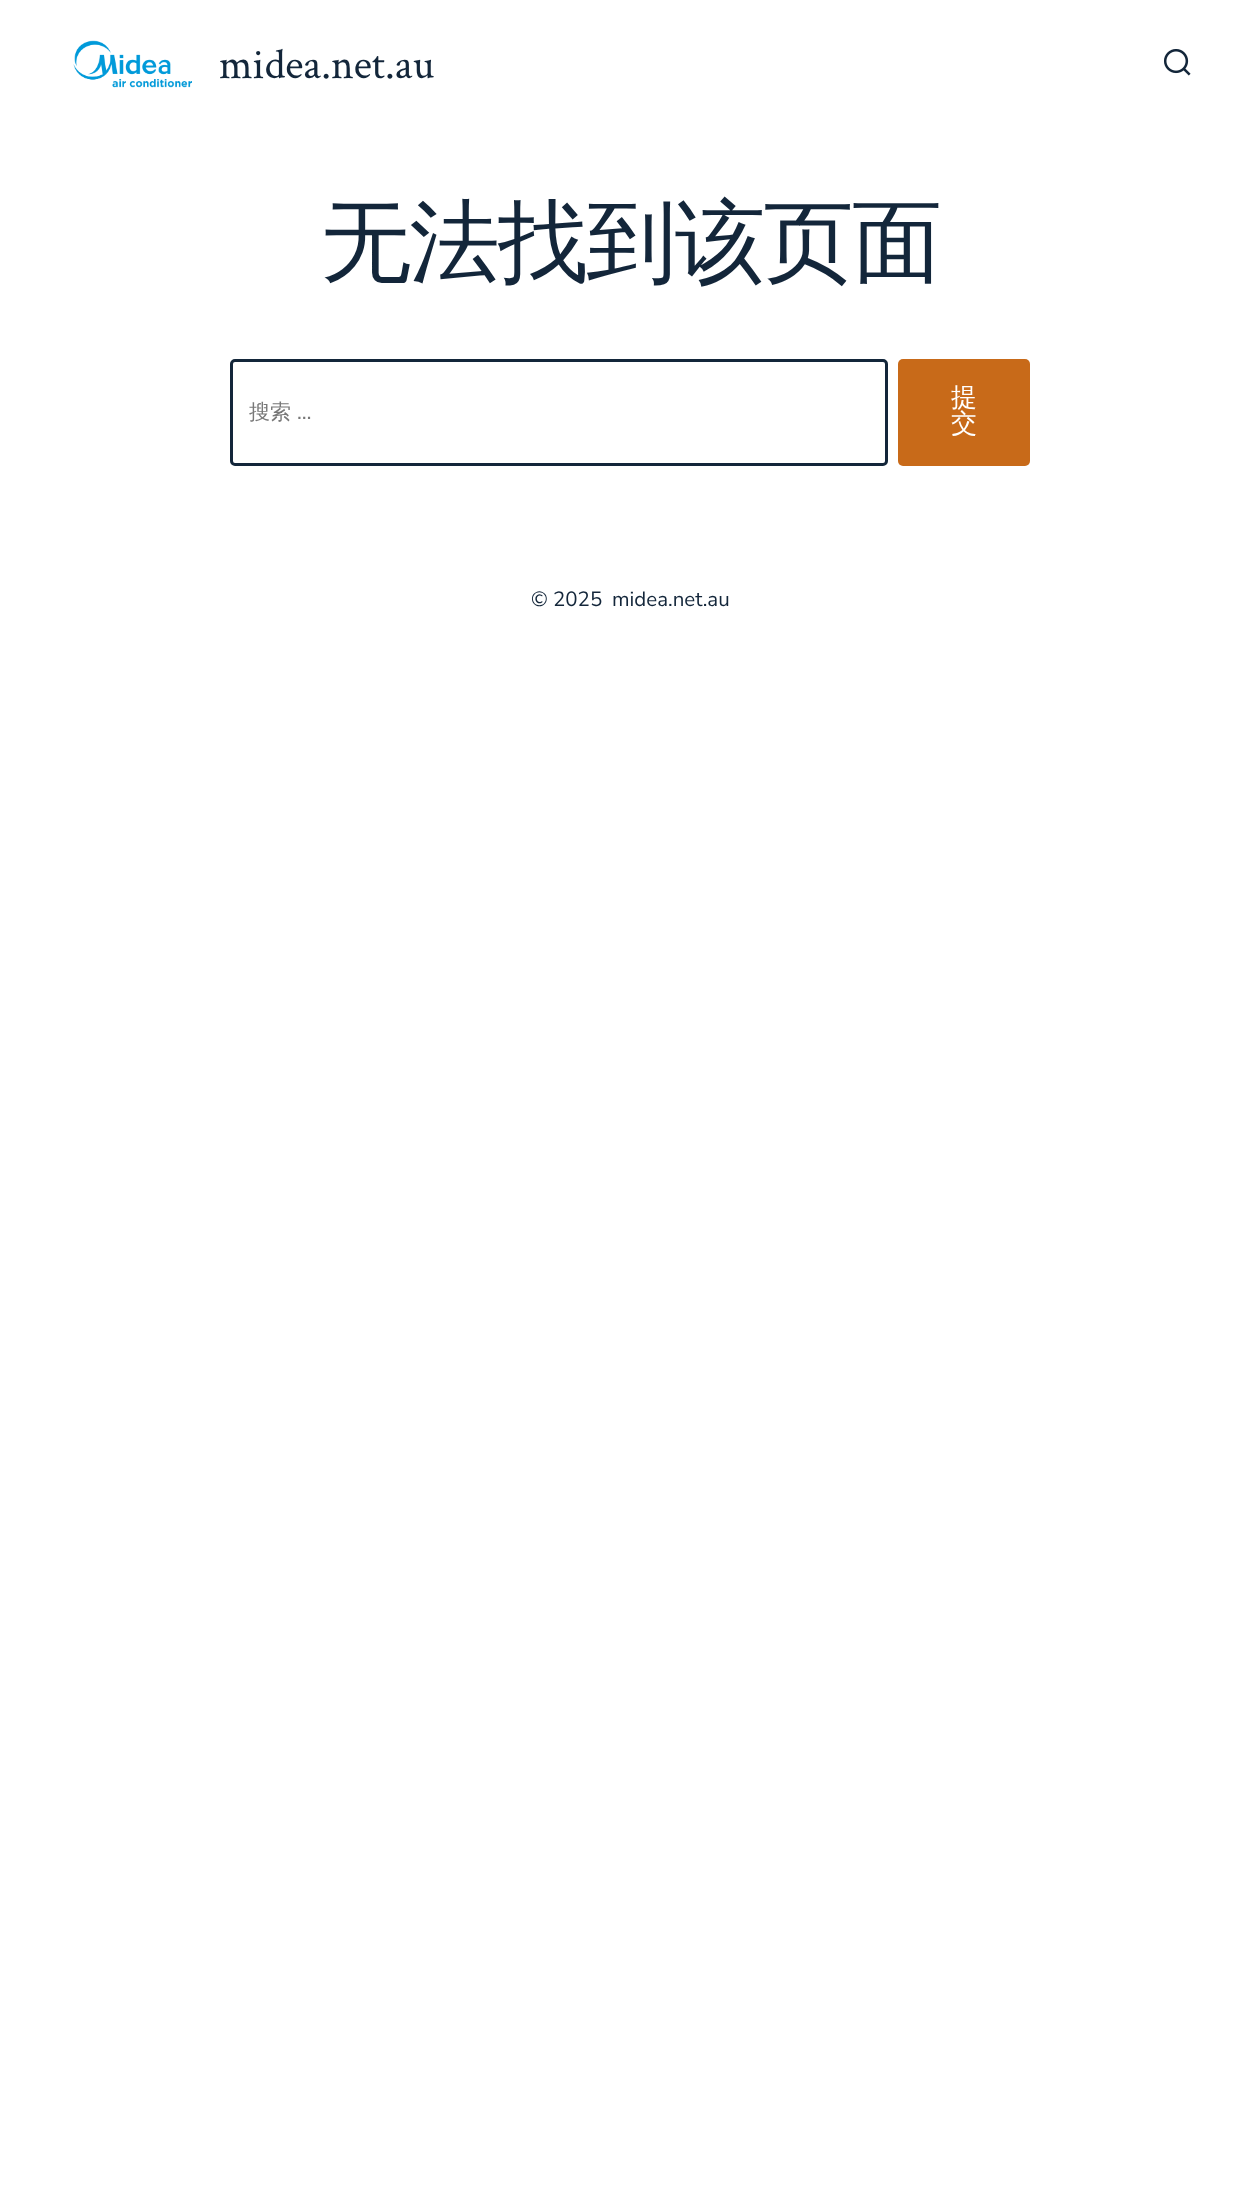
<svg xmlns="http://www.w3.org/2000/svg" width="1260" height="2199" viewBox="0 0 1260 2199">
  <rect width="100%" height="100%" fill="#ffffff"/>
  <image x="73" y="40" width="119" height="48" href="img1.png"/>
  <text x="219" y="78" font-family="Crimson Text" font-size="43" fill="#13263a">midea.net.au</text>
  <image x="1164" y="49" width="27" height="27" href="img2.png"/>
  <text x="321" y="273" font-family="WenQuanYi Zen Hei" font-size="90.25" font-weight="500" letter-spacing="-1.75" fill="#13263a">无法找到该页面</text>
  <rect x="231.5" y="360.5" width="655" height="104" rx="3.5" fill="none" stroke="#13263a" stroke-width="3"/>
  <text x="249" y="419" font-family="WenQuanYi Zen Hei" font-size="21" font-weight="500" fill="#787878">搜索</text>
  <text x="297" y="419" font-family="Nunito Sans" font-size="21" fill="#787878">…</text>
  <rect x="898" y="359" width="132" height="107" rx="5" fill="#c86a19"/>
  <text x="951" y="406" font-family="WenQuanYi Zen Hei" font-size="26" font-weight="500" fill="#ffffff">提</text>
  <text x="951" y="432" font-family="WenQuanYi Zen Hei" font-size="26" font-weight="500" fill="#ffffff">交</text>
  <text x="531" y="606" font-family="Nunito Sans" font-size="20.5" fill="#13263a">© 2025</text>
  <text x="612" y="606" font-family="Nunito Sans" font-size="20.5" fill="#13263a">midea.net.au</text>
</svg>
